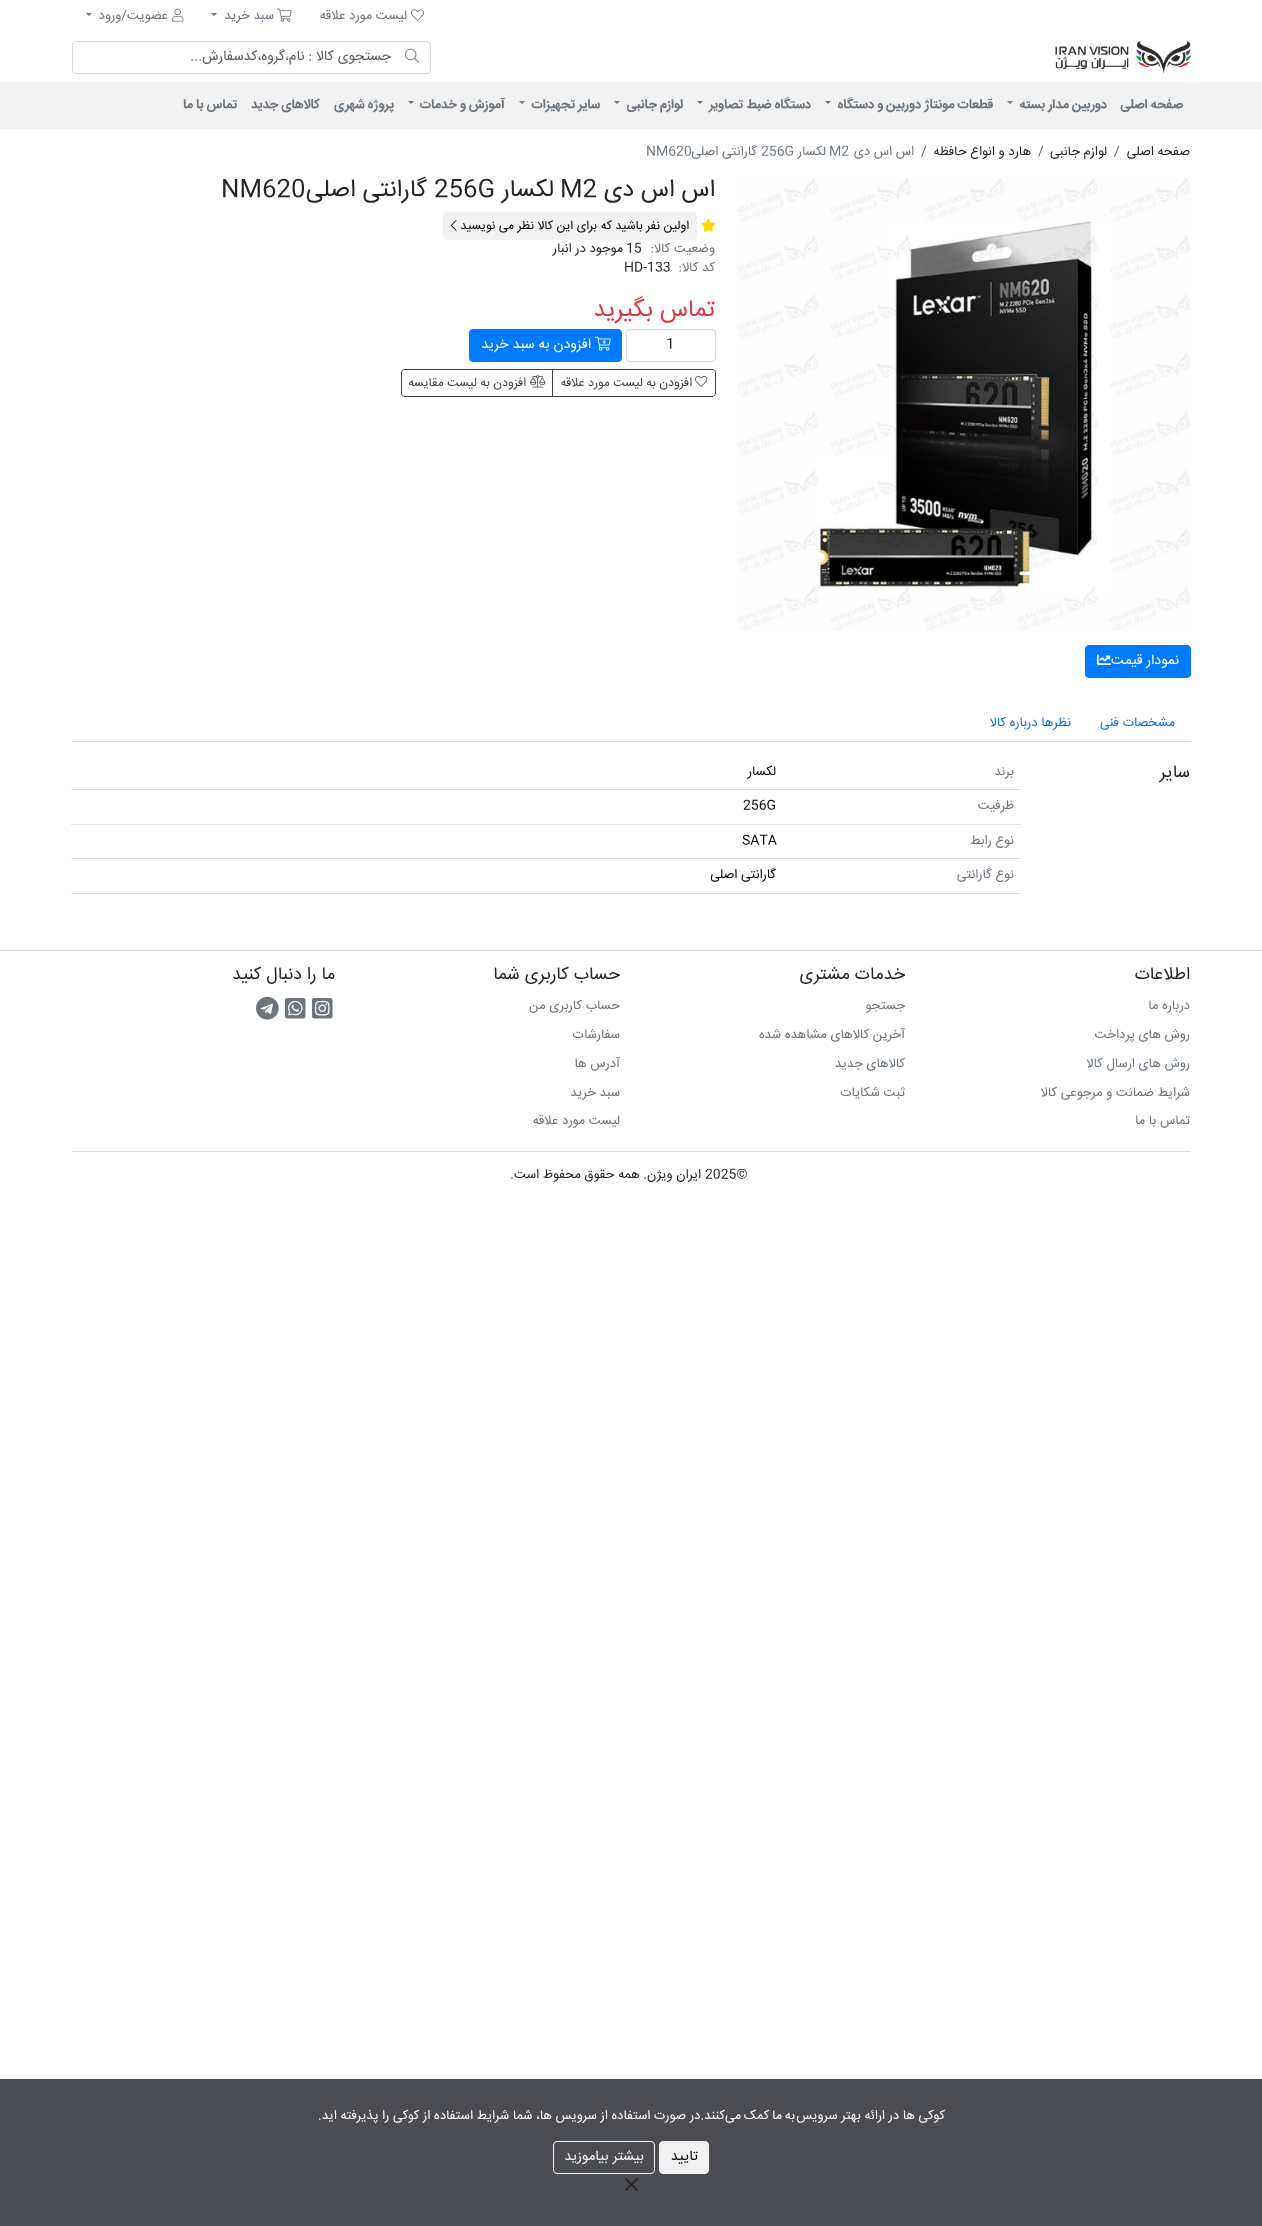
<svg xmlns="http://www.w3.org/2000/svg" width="1262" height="2226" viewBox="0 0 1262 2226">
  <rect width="100%" height="100%" fill="#ffffff"/>
  <image x="411" y="9" width="13" height="12" href="img1.png"/>
  <text x="407" y="19" font-family="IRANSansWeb" font-size="13" direction="rtl" fill="#6c757d">لیست مورد علاقه</text>
  <image x="277" y="8" width="15" height="14" href="img2.png"/>
  <text x="274" y="19" font-family="IRANSansWeb" font-size="13" direction="rtl" fill="#6c757d">سبد خرید</text>
  <path d="M211 13H217L214 16Z" fill="#6c757d"/>
  <image x="172" y="8" width="12" height="14" href="img3.png"/>
  <text x="168" y="19" font-family="IRANSansWeb" font-size="13" direction="rtl" fill="#6c757d">عضویت/ورود</text>
  <path d="M86 13H92L89 16Z" fill="#6c757d"/>
  <image x="1055" y="41" width="136" height="33" href="img4.png"/>
  <rect x="72.5" y="41.5" width="358" height="32" rx="3.5" fill="none" stroke="#d9d9d9"/>
  <image x="405" y="48" width="14" height="15" href="img5.png"/>
  <text x="391" y="60" font-family="IRANSansWeb" font-size="14" direction="rtl" fill="#595c5f">جستجوی کالا : نام،گروه،کدسفارش...</text>
  <rect x="0" y="82" width="1262" height="47" fill="#f2f2f2"/>
  <text x="1183" y="108" font-family="IRANSansWeb" font-size="13" font-weight="bold" direction="rtl" fill="#6c757d">صفحه اصلی</text>
  <text x="1107" y="108" font-family="IRANSansWeb" font-size="13" font-weight="bold" direction="rtl" fill="#6c757d">دوربین مدار بسته</text>
  <path d="M1007 101H1013L1010 104Z" fill="#6c757d"/>
  <text x="993" y="108" font-family="IRANSansWeb" font-size="13" font-weight="bold" direction="rtl" fill="#6c757d">قطعات مونتاژ دوربین و دستگاه</text>
  <path d="M825 101H831L828 104Z" fill="#6c757d"/>
  <text x="811" y="108" font-family="IRANSansWeb" font-size="13" font-weight="bold" direction="rtl" fill="#6c757d">دستگاه ضبط تصاویر</text>
  <path d="M697 101H703L700 104Z" fill="#6c757d"/>
  <text x="683" y="108" font-family="IRANSansWeb" font-size="13" font-weight="bold" direction="rtl" fill="#6c757d">لوازم جانبی</text>
  <path d="M614 101H620L617 104Z" fill="#6c757d"/>
  <text x="600" y="108" font-family="IRANSansWeb" font-size="13" font-weight="bold" direction="rtl" fill="#6c757d">سایر تجهیزات</text>
  <path d="M519 101H525L522 104Z" fill="#6c757d"/>
  <text x="505" y="108" font-family="IRANSansWeb" font-size="13" font-weight="bold" direction="rtl" fill="#6c757d">آموزش و خدمات</text>
  <path d="M408 101H414L411 104Z" fill="#6c757d"/>
  <text x="394" y="108" font-family="IRANSansWeb" font-size="13" font-weight="bold" direction="rtl" fill="#6c757d">پروژه شهری</text>
  <text x="320" y="108" font-family="IRANSansWeb" font-size="13" font-weight="bold" direction="rtl" fill="#6c757d">کالاهای جدید</text>
  <text x="237" y="108" font-family="IRANSansWeb" font-size="13" font-weight="bold" direction="rtl" fill="#6c757d">تماس با ما</text>
  <text x="1190" y="155" font-family="IRANSansWeb" font-size="13" direction="rtl" fill="#212529">صفحه اصلی</text>
  <text x="1114" y="155" font-family="IRANSansWeb" font-size="13" fill="#595c5f">/</text>
  <text x="1107" y="155" font-family="IRANSansWeb" font-size="13" direction="rtl" fill="#212529">لوازم جانبی</text>
  <text x="1038" y="155" font-family="IRANSansWeb" font-size="13" fill="#595c5f">/</text>
  <text x="1031" y="155" font-family="IRANSansWeb" font-size="13" direction="rtl" fill="#212529">هارد و انواع حافظه</text>
  <text x="921" y="155" font-family="IRANSansWeb" font-size="13" fill="#595c5f">/</text>
  <text x="914" y="155" font-family="IRANSansWeb" font-size="13" direction="rtl" fill="#6c757d">اس اس دی</text>
  <text x="829" y="155" font-family="IRANSansWeb" font-size="13" fill="#6c757d">M2</text>
  <text x="826" y="155" font-family="IRANSansWeb" font-size="13" direction="rtl" fill="#6c757d">لکسار</text>
  <text x="761" y="155" font-family="IRANSansWeb" font-size="13" fill="#6c757d">256G</text>
  <text x="757" y="155" font-family="IRANSansWeb" font-size="13" direction="rtl" fill="#6c757d">گارانتی اصلی</text>
  <text x="646" y="155" font-family="IRANSansWeb" font-size="13" fill="#6c757d">NM620</text>
  <text x="715" y="196" font-family="IRANSansWeb" font-size="24" direction="rtl" fill="#212529">اس اس دی</text>
  <text x="560" y="196" font-family="IRANSansWeb" font-size="24" fill="#212529">M2</text>
  <text x="554" y="196" font-family="IRANSansWeb" font-size="24" direction="rtl" fill="#212529">لکسار</text>
  <text x="434" y="196" font-family="IRANSansWeb" font-size="24" fill="#212529">256G</text>
  <text x="427" y="196" font-family="IRANSansWeb" font-size="24" direction="rtl" fill="#212529">گارانتی اصلی</text>
  <text x="221" y="196" font-family="IRANSansWeb" font-size="24" fill="#212529">NM620</text>
  <image x="701" y="218" width="15" height="14" href="img6.png"/>
  <rect x="443.5" y="212.5" width="253" height="27" rx="3.5" fill="#f2f2f2" stroke="#f2f2f2"/>
  <text x="689" y="229" font-family="IRANSansWeb" font-size="12.25" direction="rtl" fill="#000000">اولین نفر باشید که برای این کالا نظر می نویسید</text>
  <image x="450" y="220" width="7" height="11" href="img7.png"/>
  <text x="715" y="252" font-family="IRANSansWeb" font-size="13" direction="rtl" fill="#6c757d">وضعیت کالا:</text>
  <text x="626" y="252" font-family="IRANSansWeb" font-size="13" fill="#212529">15</text>
  <text x="623" y="252" font-family="IRANSansWeb" font-size="13" direction="rtl" fill="#212529">موجود در انبار</text>
  <text x="715" y="271" font-family="IRANSansWeb" font-size="13" direction="rtl" fill="#6c757d">کد کالا:</text>
  <text x="624" y="271" font-family="IRANSansWeb" font-size="13" fill="#212529">HD-133</text>
  <text x="715" y="316" font-family="IRANSansWeb" font-size="24" direction="rtl" fill="#dc3545">تماس بگیرید</text>
  <rect x="626.5" y="329.5" width="89" height="32" rx="3.5" fill="none" stroke="#d9d9d9"/>
  <text x="666" y="348" font-family="IRANSansWeb" font-size="14" fill="#212529">1</text>
  <rect x="469.5" y="329.5" width="152" height="32" rx="3.5" fill="#007bff" stroke="#007bff"/>
  <image x="595" y="336" width="16" height="15" href="img8.png"/>
  <text x="591" y="348" font-family="IRANSansWeb" font-size="14" direction="rtl" fill="#ffffff">افزودن به سبد خرید</text>
  <path d="M552.5 369.5H712C714 369.5 715.5 371 715.5 373V393C715.5 395 714 396.5 712 396.5H552.5Z" fill="none" stroke="#414149"/>
  <image x="695" y="376" width="13" height="11" href="img9.png"/>
  <text x="692" y="386" font-family="IRANSansWeb" font-size="12.25" direction="rtl" fill="#414149">افزودن به لیست مورد علاقه</text>
  <path d="M405 369.5H552.5V396.5H405C403 396.5 401.5 395 401.5 393V373C401.5 371 403 369.5 405 369.5Z" fill="none" stroke="#414149"/>
  <image x="530" y="375" width="16" height="13" href="img10.png"/>
  <text x="526" y="386" font-family="IRANSansWeb" font-size="12.25" direction="rtl" fill="#414149">افزودن به لیست مقایسه</text>
  <image x="737" y="178" width="454" height="453" href="img11.png"/>
  <rect x="1085.5" y="645.5" width="105" height="32" rx="3.5" fill="#007bff" stroke="#007bff"/>
  <text x="1179" y="664" font-family="IRANSansWeb" font-size="14" direction="rtl" fill="#ffffff">نمودار قیمت</text>
  <image x="1097" y="654" width="14" height="11" href="img12.png"/>
  <rect x="72" y="741" width="1119" height="1" fill="#d9d9d9"/>
  <text x="1175" y="726" font-family="IRANSansWeb" font-size="13" direction="rtl" fill="#0d6efd">مشخصات فنی</text>
  <text x="1071" y="726" font-family="IRANSansWeb" font-size="13" direction="rtl" fill="#0d6efd">نظرها درباره کالا</text>
  <text x="1190" y="777" font-family="IRANSansWeb" font-size="17.5" direction="rtl" fill="#212529">سایر</text>
  <text x="1014" y="775" font-family="IRANSansWeb" font-size="13" direction="rtl" fill="#6c757d">برند</text>
  <rect x="71" y="789" width="950" height="1" fill="#dee2e6"/>
  <text x="776" y="775" font-family="IRANSansWeb" font-size="13" direction="rtl" fill="#000000">لکسار</text>
  <text x="1014" y="809" font-family="IRANSansWeb" font-size="13" direction="rtl" fill="#6c757d">ظرفیت</text>
  <rect x="71" y="824" width="950" height="1" fill="#dee2e6"/>
  <text x="743" y="809" font-family="IRANSansWeb" font-size="13" fill="#000000">256G</text>
  <text x="1014" y="844" font-family="IRANSansWeb" font-size="13" direction="rtl" fill="#6c757d">نوع رابط</text>
  <rect x="71" y="858" width="950" height="1" fill="#dee2e6"/>
  <text x="742" y="844" font-family="IRANSansWeb" font-size="13" fill="#000000">SATA</text>
  <text x="1014" y="878" font-family="IRANSansWeb" font-size="13" direction="rtl" fill="#6c757d">نوع گارانتی</text>
  <rect x="71" y="893" width="950" height="1" fill="#dee2e6"/>
  <text x="776" y="878" font-family="IRANSansWeb" font-size="13" direction="rtl" fill="#000000">گارانتی اصلی</text>
  <rect x="0" y="950" width="1262" height="1" fill="#d9d9d9"/>
  <text x="1190" y="979" font-family="IRANSansWeb" font-size="17.5" direction="rtl" fill="#212529">اطلاعات</text>
  <text x="1190" y="1009" font-family="IRANSansWeb" font-size="13" direction="rtl" fill="#6c757d">درباره ما</text>
  <text x="1190" y="1038" font-family="IRANSansWeb" font-size="13" direction="rtl" fill="#6c757d">روش های پرداخت</text>
  <text x="1190" y="1067" font-family="IRANSansWeb" font-size="13" direction="rtl" fill="#6c757d">روش های ارسال کالا</text>
  <text x="1190" y="1096" font-family="IRANSansWeb" font-size="13" direction="rtl" fill="#6c757d">شرایط ضمانت و مرجوعی کالا</text>
  <text x="1190" y="1124" font-family="IRANSansWeb" font-size="13" direction="rtl" fill="#6c757d">تماس با ما</text>
  <text x="905" y="979" font-family="IRANSansWeb" font-size="17.5" direction="rtl" fill="#212529">خدمات مشتری</text>
  <text x="905" y="1009" font-family="IRANSansWeb" font-size="13" direction="rtl" fill="#6c757d">جستجو</text>
  <text x="905" y="1038" font-family="IRANSansWeb" font-size="13" direction="rtl" fill="#6c757d">آخرین کالاهای مشاهده شده</text>
  <text x="905" y="1067" font-family="IRANSansWeb" font-size="13" direction="rtl" fill="#6c757d">کالاهای جدید</text>
  <text x="905" y="1096" font-family="IRANSansWeb" font-size="13" direction="rtl" fill="#6c757d">ثبت شکایات</text>
  <text x="620" y="979" font-family="IRANSansWeb" font-size="17.5" direction="rtl" fill="#212529">حساب کاربری شما</text>
  <text x="620" y="1009" font-family="IRANSansWeb" font-size="13" direction="rtl" fill="#6c757d">حساب کاربری من</text>
  <text x="620" y="1038" font-family="IRANSansWeb" font-size="13" direction="rtl" fill="#6c757d">سفارشات</text>
  <text x="620" y="1067" font-family="IRANSansWeb" font-size="13" direction="rtl" fill="#6c757d">آدرس ها</text>
  <text x="620" y="1096" font-family="IRANSansWeb" font-size="13" direction="rtl" fill="#6c757d">سبد خرید</text>
  <text x="620" y="1124" font-family="IRANSansWeb" font-size="13" direction="rtl" fill="#6c757d">لیست مورد علاقه</text>
  <text x="335" y="979" font-family="IRANSansWeb" font-size="17.5" direction="rtl" fill="#212529">ما را دنبال کنید</text>
  <image x="312" y="998" width="21" height="21" href="img13.png"/>
  <image x="285" y="998" width="21" height="21" href="img14.png"/>
  <image x="256" y="996" width="23" height="24" href="img15.png"/>
  <rect x="72" y="1151" width="1119" height="1" fill="#d9d9d9"/>
  <text x="705" y="1178" font-family="IRANSansWeb" font-size="13" fill="#212529">2025©</text>
  <text x="701" y="1178" font-family="IRANSansWeb" font-size="13" direction="rtl" fill="#212529">ایران ویژن. همه حقوق محفوظ است.</text>
  <rect x="0" y="2079" width="1262" height="147" fill="#4b4b52"/>
  <text x="795" y="2119" word-spacing="-1" font-family="IRANSansWeb" font-size="13" direction="rtl" fill="#ffffff">به ما کمک می</text>
  <text x="945" y="2119" font-family="IRANSansWeb" font-size="13" direction="rtl" fill="#ffffff">کوکی ها در ارائه بهتر سرویس</text>
  <text x="725" y="2119" font-family="IRANSansWeb" font-size="13" direction="rtl" fill="#ffffff">کنند.در صورت استفاده از سرویس ها، شما شرایط استفاده از کوکی را پذیرفته اید.</text>
  <rect x="659.5" y="2141.5" width="49" height="32" rx="3.5" fill="#f2f2f2" stroke="#f2f2f2"/>
  <text x="698" y="2160" font-family="IRANSansWeb" font-size="14" direction="rtl" fill="#000000">تایید</text>
  <rect x="553.5" y="2141.5" width="101" height="32" rx="3.5" fill="none" stroke="#f8f9fa"/>
  <text x="644" y="2160" font-family="IRANSansWeb" font-size="14" direction="rtl" fill="#f8f9fa">بیشتر بیاموزید</text>
  <image x="625" y="2178" width="13" height="13" href="img16.png"/>
</svg>
